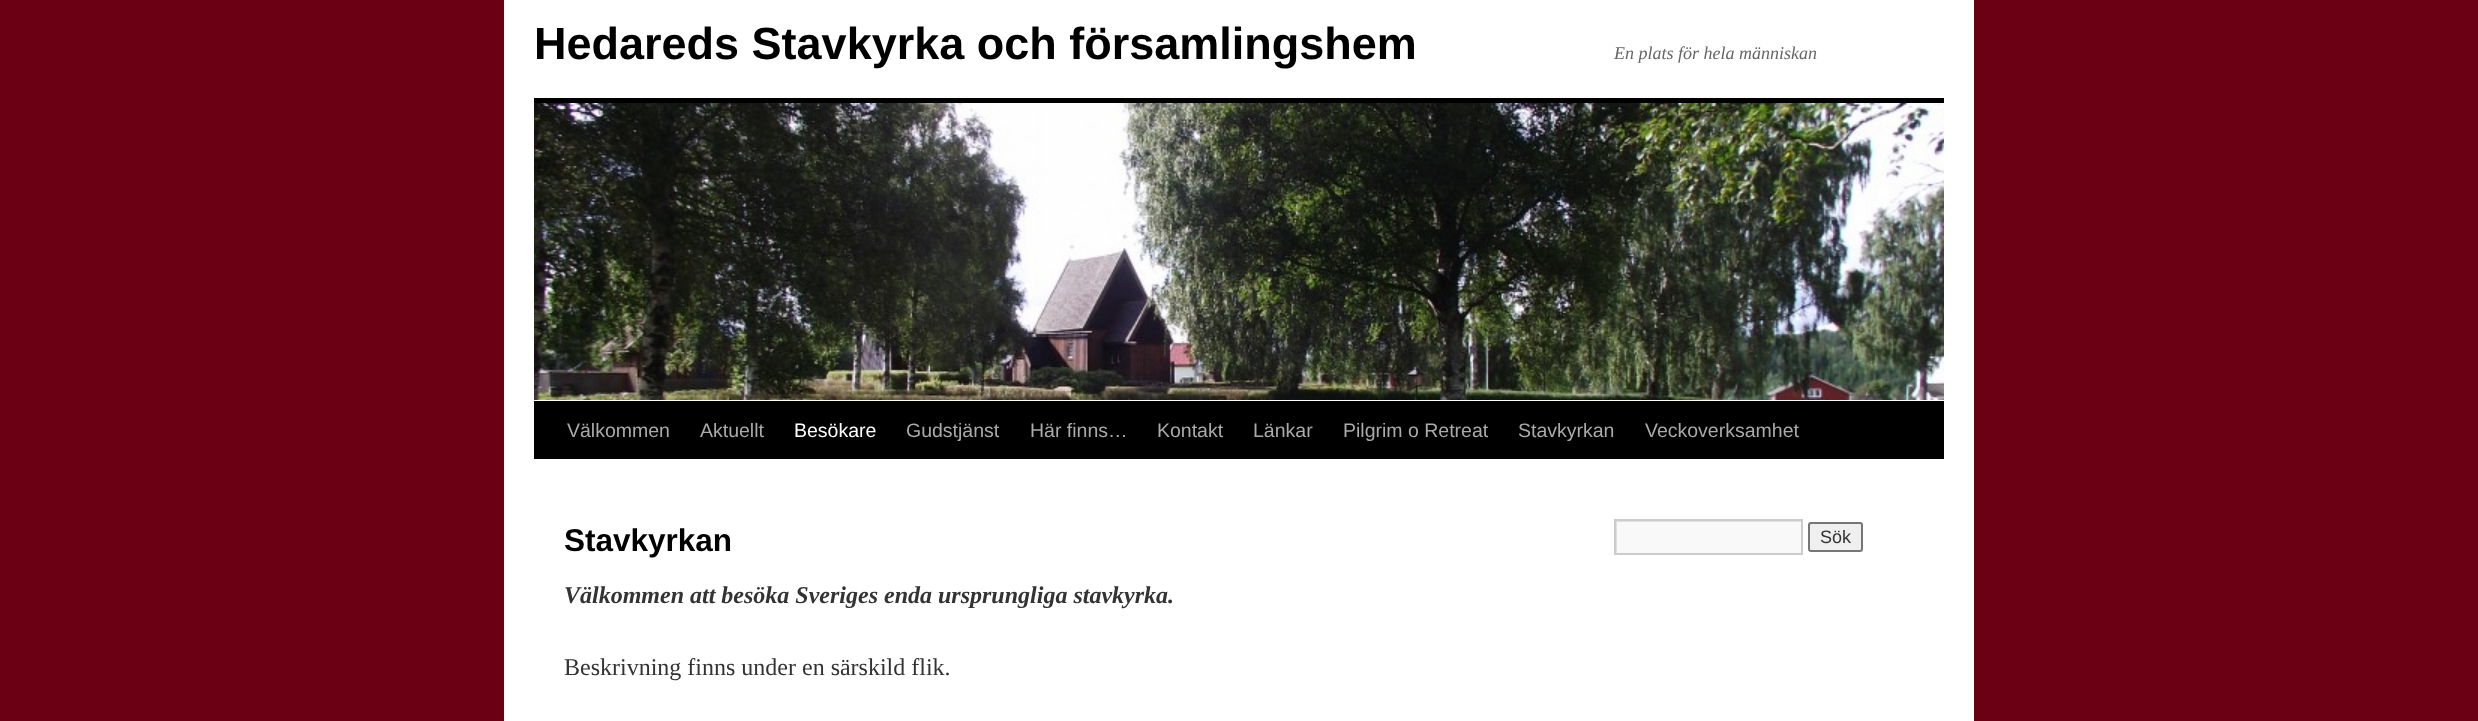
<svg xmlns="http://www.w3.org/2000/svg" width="2478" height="721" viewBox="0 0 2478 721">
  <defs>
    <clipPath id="clip1"><rect x="1616" y="521" width="186" height="33"/></clipPath>
  </defs>
  <rect width="100%" height="100%" fill="#6b0015"/>
  <rect x="504" y="0" width="1470" height="721" fill="#ffffff"/>
  <text x="534" y="59" font-family="Liberation Sans" font-size="45" font-weight="bold" fill="#000000">Hedareds Stavkyrka och församlingshem</text>
  <text x="1614" y="59" font-family="Liberation Serif" font-size="18" font-style="italic" fill="#666666">En plats för hela människan</text>
  <rect x="534" y="98" width="1410" height="5" fill="#000000"/>
  <rect x="534" y="401" width="1410" height="58" fill="#000000"/>
  <image x="534" y="103" width="1410" height="297" href="img1.png"/>
  <text x="567" y="437" font-family="Liberation Sans" font-size="19.5" fill="#aaaaaa">Välkommen</text>
  <text x="700" y="437" font-family="Liberation Sans" font-size="19.5" fill="#aaaaaa">Aktuellt</text>
  <text x="794" y="437" font-family="Liberation Sans" font-size="19.5" fill="#ffffff">Besökare</text>
  <text x="906" y="437" font-family="Liberation Sans" font-size="19.5" fill="#aaaaaa">Gudstjänst</text>
  <text x="1030" y="437" font-family="Liberation Sans" font-size="19.5" fill="#aaaaaa">Här finns…</text>
  <text x="1157" y="437" font-family="Liberation Sans" font-size="19.5" fill="#aaaaaa">Kontakt</text>
  <text x="1253" y="437" font-family="Liberation Sans" font-size="19.5" fill="#aaaaaa">Länkar</text>
  <text x="1343" y="437" font-family="Liberation Sans" font-size="19.5" fill="#aaaaaa">Pilgrim o Retreat</text>
  <text x="1518" y="437" font-family="Liberation Sans" font-size="19.5" fill="#aaaaaa">Stavkyrkan</text>
  <text x="1645" y="437" font-family="Liberation Sans" font-size="19.5" fill="#aaaaaa">Veckoverksamhet</text>
  <text x="564" y="551" font-family="Liberation Sans" font-size="31.5" font-weight="bold" fill="#000000">Stavkyrkan</text>
  <text x="564" y="603" font-family="Liberation Serif" font-size="24" font-weight="bold" font-style="italic" fill="#333333">Välkommen att besöka Sveriges enda ursprungliga stavkyrka.</text>
  <text x="564" y="675" font-family="Liberation Serif" font-size="24" fill="#333333">Beskrivning finns under en särskild flik.</text>
  <rect x="1617" y="522" width="184" height="31" fill="#f9f9f9"/>
  <g clip-path="url(#clip1)">
    <path d="M1467 372H1950V702H1467ZM1617 522H1803V555H1617Z" fill="#e0e0e0" fill-rule="evenodd"/>
  </g>
  <rect x="1615" y="520" width="187" height="34" fill="none" stroke="#cccccc" stroke-width="2"/>
  <rect x="1809" y="523" width="53" height="28" rx="2" fill="#efefef" stroke="#767676" stroke-width="2"/>
  <text x="1820" y="543" font-family="Liberation Sans" font-size="18" fill="#333333">Sök</text>
</svg>
